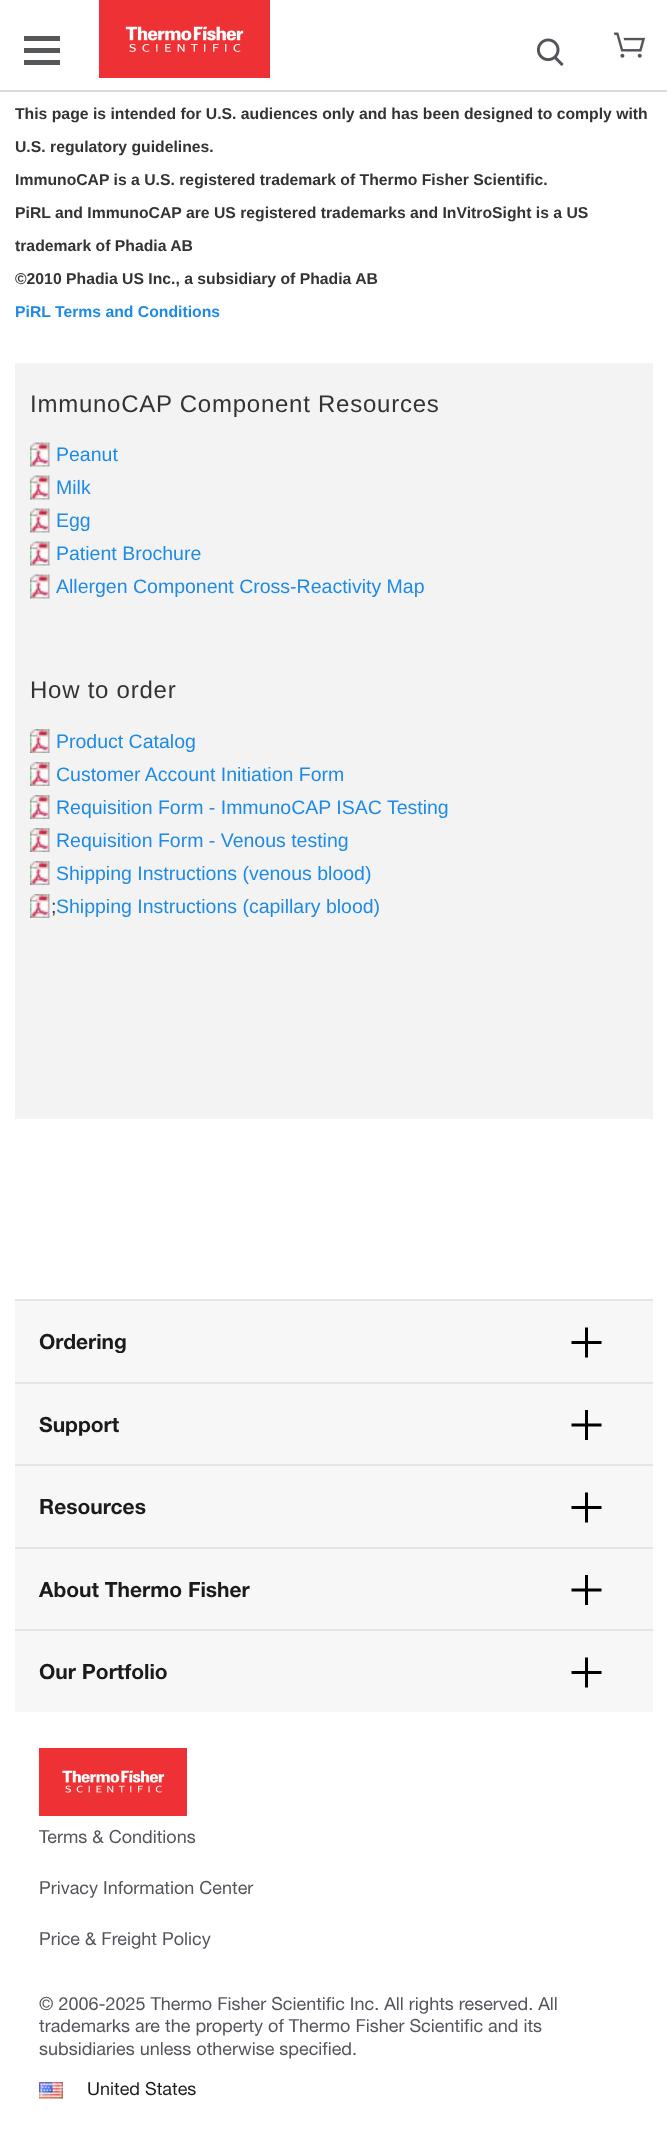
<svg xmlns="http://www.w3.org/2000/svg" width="667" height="2147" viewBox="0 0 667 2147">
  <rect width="100%" height="100%" fill="#ffffff"/>
  <rect x="0" y="90" width="667" height="2" fill="#dcdcdc"/>
  <rect x="24" y="48" width="36" height="5" fill="#555759"/>
  <rect x="24" y="36" width="36" height="5" fill="#555759"/>
  <rect x="24" y="60" width="36" height="5" fill="#555759"/>
  <image x="99" y="0" width="171" height="78" href="img1.png"/>
  <image x="536" y="38" width="28" height="28" href="img2.png"/>
  <image x="613" y="32" width="32" height="26" href="img3.png"/>
  <text x="15" y="119" font-family="Liberation Sans" font-size="15.75" font-weight="bold" fill="#333333">This page is intended for U.S. audiences only and has been designed to comply with</text>
  <text x="15" y="152" font-family="Liberation Sans" font-size="15.75" font-weight="bold" fill="#333333">U.S. regulatory guidelines.</text>
  <text x="15" y="185" font-family="Liberation Sans" font-size="15.75" font-weight="bold" fill="#333333">ImmunoCAP is a U.S. registered trademark of Thermo Fisher Scientific.</text>
  <text x="15" y="218" font-family="Liberation Sans" font-size="15.75" font-weight="bold" fill="#333333">PiRL and ImmunoCAP are US registered trademarks and InVitroSight is a US</text>
  <text x="15" y="251" font-family="Liberation Sans" font-size="15.75" font-weight="bold" fill="#333333">trademark of Phadia AB</text>
  <text x="15" y="284" font-family="Liberation Sans" font-size="15.75" font-weight="bold" fill="#333333">©2010 Phadia US Inc., a subsidiary of Phadia AB</text>
  <text x="15" y="317" font-family="Liberation Sans" font-size="15.75" font-weight="bold" fill="#1e8ae7">PiRL Terms and Conditions</text>
  <rect x="15" y="363" width="638" height="756" fill="#f3f3f3"/>
  <text x="30" y="412" font-family="Liberation Sans" font-size="24" letter-spacing="0.75" fill="#333333">ImmunoCAP Component Resources</text>
  <image x="30" y="442" width="20" height="25" href="img4.png"/>
  <text x="56" y="461" font-family="Liberation Sans" font-size="19.5" fill="#1e8ae7">Peanut</text>
  <image x="30" y="475" width="20" height="25" href="img4.png"/>
  <text x="56" y="494" font-family="Liberation Sans" font-size="19.5" fill="#1e8ae7">Milk</text>
  <image x="30" y="508" width="20" height="25" href="img4.png"/>
  <text x="56" y="527" font-family="Liberation Sans" font-size="19.5" fill="#1e8ae7">Egg</text>
  <image x="30" y="541" width="20" height="25" href="img4.png"/>
  <text x="56" y="560" font-family="Liberation Sans" font-size="19.5" fill="#1e8ae7">Patient Brochure</text>
  <image x="30" y="574" width="20" height="25" href="img4.png"/>
  <text x="56" y="593" font-family="Liberation Sans" font-size="19.5" fill="#1e8ae7">Allergen Component Cross-Reactivity Map</text>
  <text x="30" y="698" font-family="Liberation Sans" font-size="24" letter-spacing="0.75" fill="#333333">How to order</text>
  <image x="30" y="729" width="20" height="24" href="img5.png"/>
  <text x="56" y="748" font-family="Liberation Sans" font-size="19.5" fill="#1e8ae7">Product Catalog</text>
  <image x="30" y="762" width="20" height="24" href="img5.png"/>
  <text x="56" y="781" font-family="Liberation Sans" font-size="19.5" fill="#1e8ae7">Customer Account Initiation Form</text>
  <image x="30" y="795" width="20" height="24" href="img5.png"/>
  <text x="56" y="814" font-family="Liberation Sans" font-size="19.5" fill="#1e8ae7">Requisition Form - ImmunoCAP ISAC Testing</text>
  <image x="30" y="828" width="20" height="24" href="img5.png"/>
  <text x="56" y="847" font-family="Liberation Sans" font-size="19.5" fill="#1e8ae7">Requisition Form - Venous testing</text>
  <image x="30" y="861" width="20" height="24" href="img5.png"/>
  <text x="56" y="880" font-family="Liberation Sans" font-size="19.5" fill="#1e8ae7">Shipping Instructions (venous blood)</text>
  <image x="30" y="894" width="20" height="24" href="img5.png"/>
  <text x="51" y="913" font-family="Liberation Sans" font-size="19.5" fill="#333333">;</text>
  <text x="56" y="913" font-family="Liberation Sans" font-size="19.5" fill="#1e8ae7">Shipping Instructions (capillary blood)</text>
  <rect x="15" y="1301" width="638" height="411" fill="#f7f7f7"/>
  <rect x="15" y="1299" width="638" height="2" fill="#e5e5e5"/>
  <text x="39" y="1349" font-family="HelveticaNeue" font-size="21" font-weight="bold" fill="#1b1b1d">Ordering</text>
  <image x="571" y="1327" width="31" height="31" href="img6.png"/>
  <rect x="15" y="1382" width="638" height="2" fill="#e5e5e5"/>
  <text x="39" y="1432" font-family="HelveticaNeue" font-size="21" font-weight="bold" fill="#1b1b1d">Support</text>
  <image x="571" y="1410" width="31" height="30" href="img7.png"/>
  <rect x="15" y="1464" width="638" height="2" fill="#e5e5e5"/>
  <text x="39" y="1514" font-family="HelveticaNeue" font-size="21" font-weight="bold" fill="#1b1b1d">Resources</text>
  <image x="571" y="1492" width="31" height="31" href="img6.png"/>
  <rect x="15" y="1547" width="638" height="2" fill="#e5e5e5"/>
  <text x="39" y="1597" font-family="HelveticaNeue" font-size="21" font-weight="bold" fill="#1b1b1d">About Thermo Fisher</text>
  <image x="571" y="1575" width="31" height="30" href="img7.png"/>
  <rect x="15" y="1629" width="638" height="2" fill="#e5e5e5"/>
  <text x="39" y="1679" font-family="HelveticaNeue" font-size="21" font-weight="bold" fill="#1b1b1d">Our Portfolio</text>
  <image x="571" y="1657" width="31" height="31" href="img6.png"/>
  <image x="39" y="1748" width="148" height="68" href="img8.png"/>
  <text x="39" y="1843" font-family="HelveticaNeue" font-size="18" fill="#54545c">Terms &amp; Conditions</text>
  <text x="39" y="1894" font-family="HelveticaNeue" font-size="18" fill="#54545c">Privacy Information Center</text>
  <text x="39" y="1945" font-family="HelveticaNeue" font-size="18" fill="#54545c">Price &amp; Freight Policy</text>
  <text x="39" y="2010" font-family="HelveticaNeue" font-size="18" fill="#54545c">© 2006-2025 Thermo Fisher Scientific Inc. All rights reserved. All</text>
  <text x="39" y="2032" font-family="HelveticaNeue" font-size="18" fill="#54545c">trademarks are the property of Thermo Fisher Scientific and its</text>
  <text x="39" y="2055" font-family="HelveticaNeue" font-size="18" fill="#54545c">subsidiaries unless otherwise specified.</text>
  <image x="39" y="2082" width="24" height="17" href="img9.png"/>
  <text x="87" y="2095" font-family="HelveticaNeue" font-size="18" fill="#1b1b1d">United States</text>
</svg>
